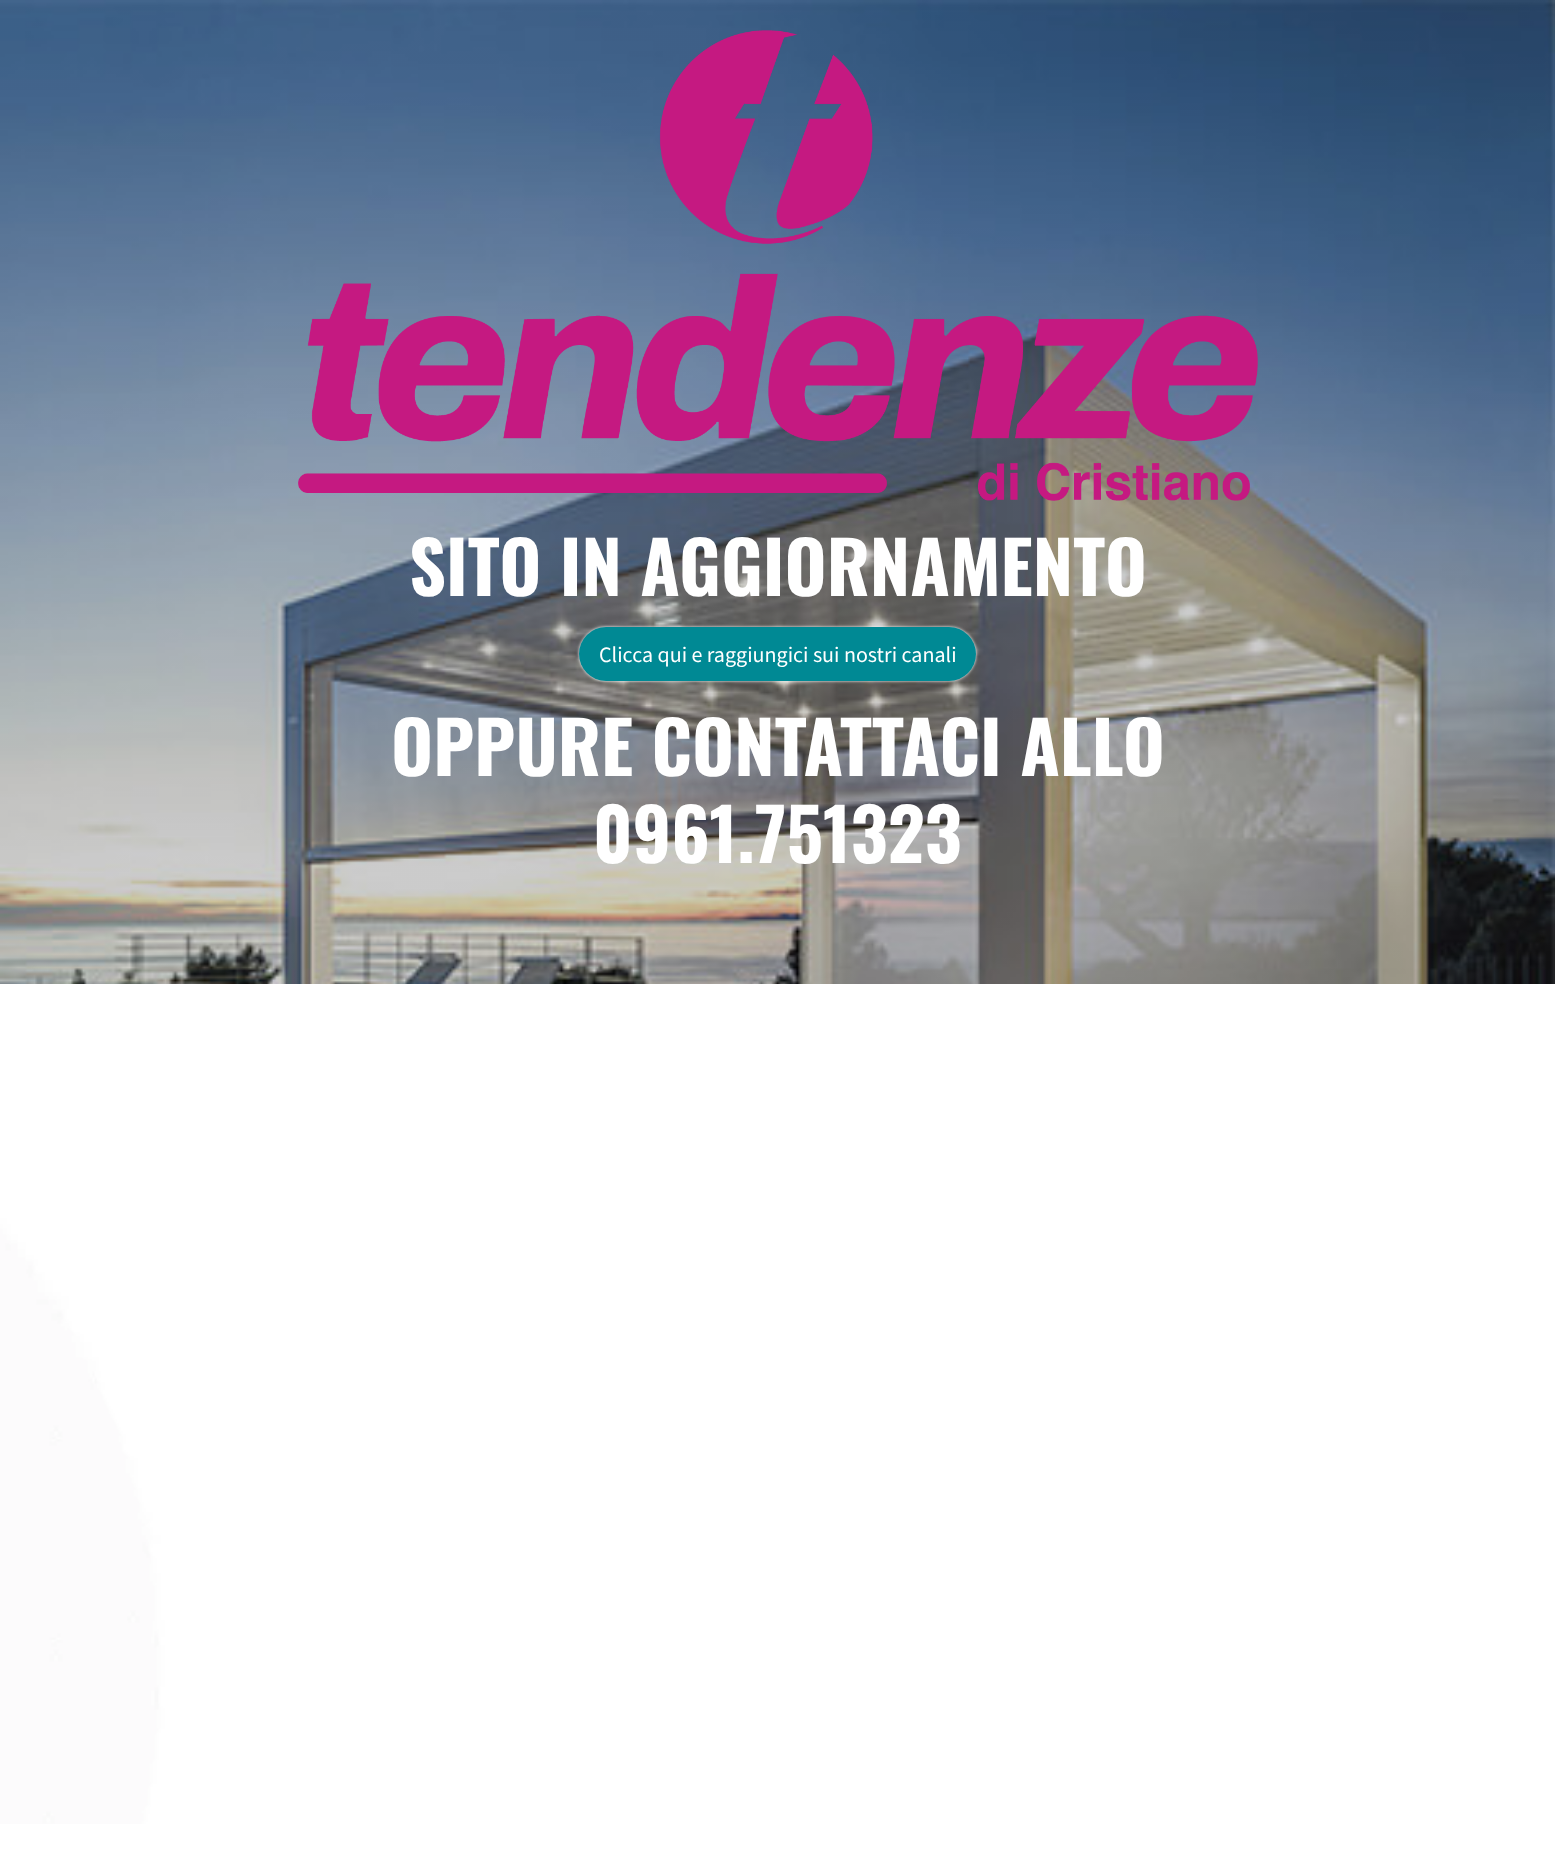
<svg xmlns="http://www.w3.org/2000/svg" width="1555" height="1852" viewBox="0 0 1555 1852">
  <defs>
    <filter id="blur1" x="-50%" y="-200%" width="200%" height="500%"><feGaussianBlur stdDeviation="1.5"/></filter>
  </defs>
  <rect width="100%" height="100%" fill="#ffffff"/>
  <image x="0" y="984" width="1555" height="840" href="img1.png"/>
  <image x="0" y="0" width="1555" height="984" href="img2.png"/>
  <image x="298" y="30" width="960" height="471" href="img3.png"/>
  <text x="409" y="596" font-family="Oswald" font-size="72" font-weight="bold" fill="#ffffff">SITO IN AGGIORNAMENTO</text>
  <rect x="579" y="627" width="397" height="54" rx="27" fill="#ffffff" filter="url(#blur1)"/>
  <rect x="579" y="627" width="397" height="54" rx="27" fill="#008994"/>
  <text x="599" y="662" font-family="Source Sans Pro" font-size="22" fill="#ffffff">Clicca qui e raggiungici sui nostri canali</text>
  <text x="391" y="776" font-family="Oswald" font-size="72" font-weight="bold" fill="#ffffff">OPPURE CONTATTACI ALLO</text>
  <text x="593" y="863" font-family="Oswald" font-size="72" font-weight="bold" fill="#ffffff">0961.751323</text>
</svg>
